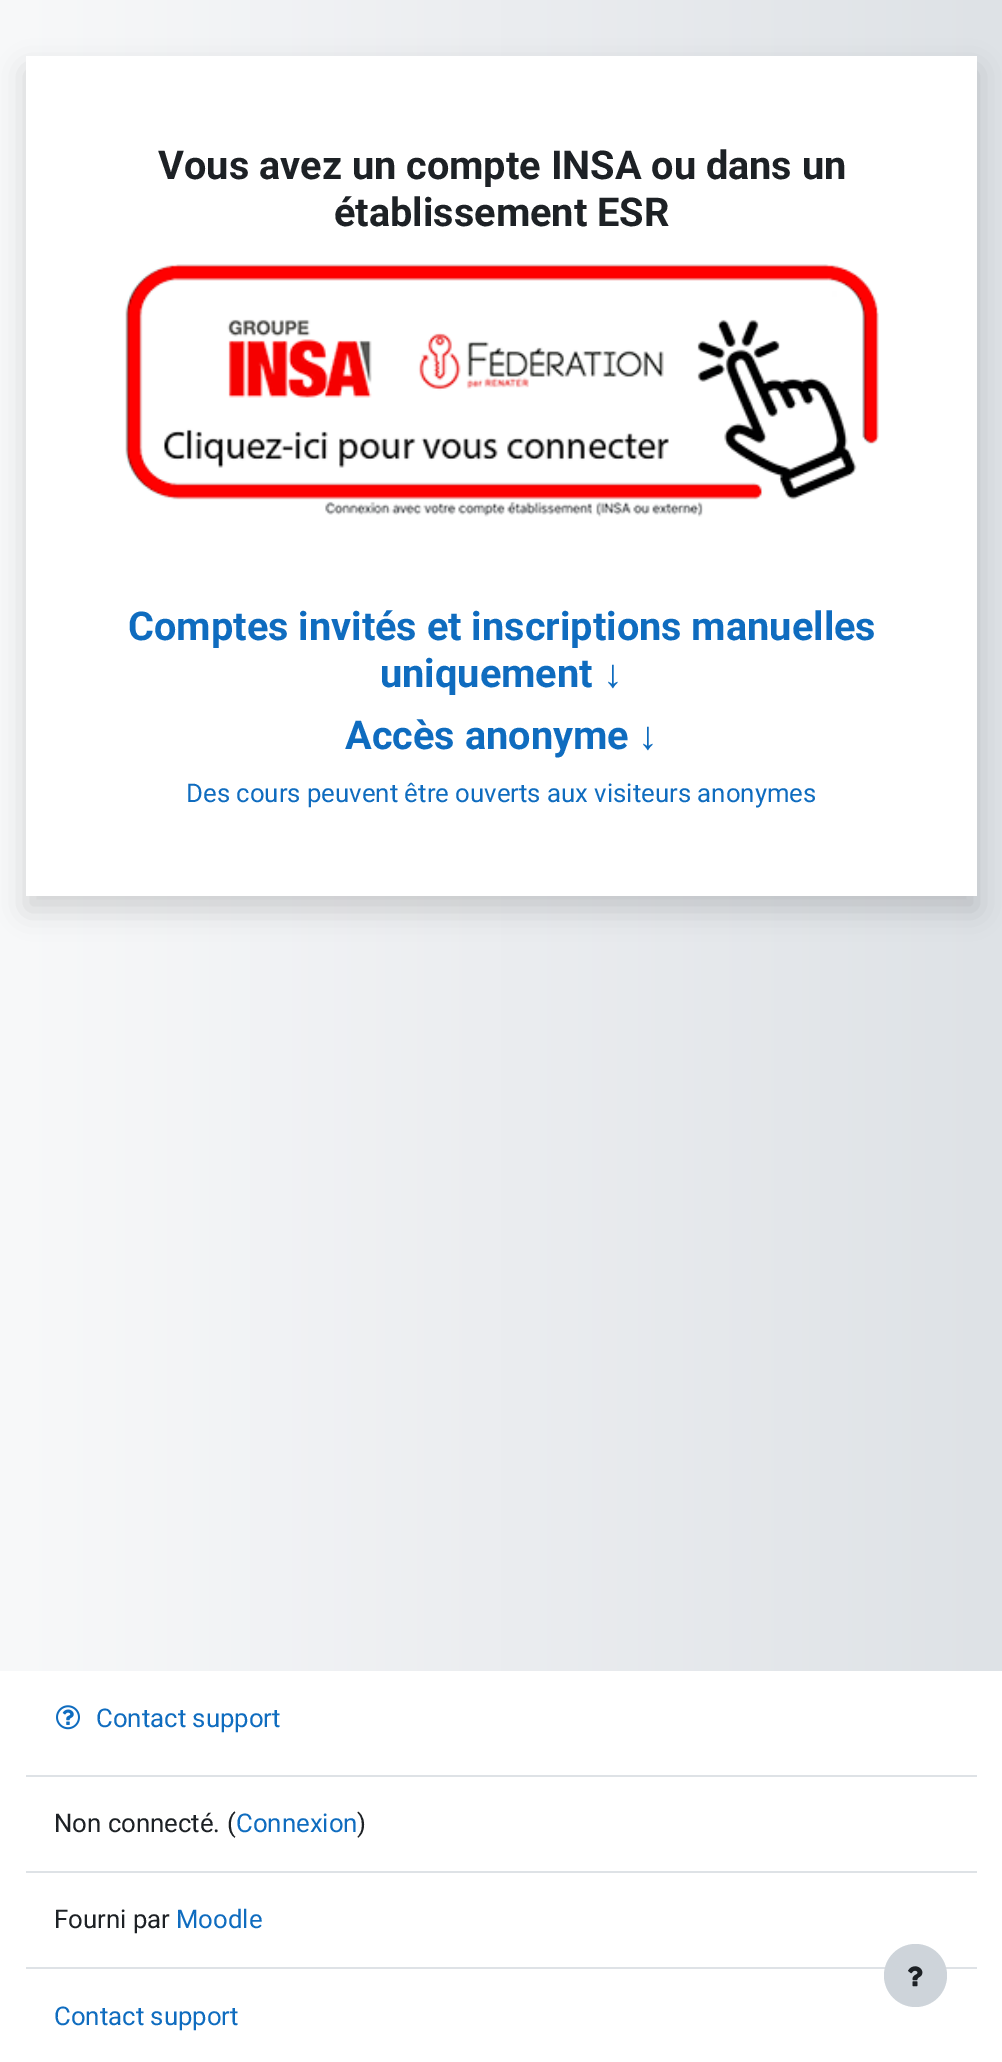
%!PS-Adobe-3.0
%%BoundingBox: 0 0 1002 2062
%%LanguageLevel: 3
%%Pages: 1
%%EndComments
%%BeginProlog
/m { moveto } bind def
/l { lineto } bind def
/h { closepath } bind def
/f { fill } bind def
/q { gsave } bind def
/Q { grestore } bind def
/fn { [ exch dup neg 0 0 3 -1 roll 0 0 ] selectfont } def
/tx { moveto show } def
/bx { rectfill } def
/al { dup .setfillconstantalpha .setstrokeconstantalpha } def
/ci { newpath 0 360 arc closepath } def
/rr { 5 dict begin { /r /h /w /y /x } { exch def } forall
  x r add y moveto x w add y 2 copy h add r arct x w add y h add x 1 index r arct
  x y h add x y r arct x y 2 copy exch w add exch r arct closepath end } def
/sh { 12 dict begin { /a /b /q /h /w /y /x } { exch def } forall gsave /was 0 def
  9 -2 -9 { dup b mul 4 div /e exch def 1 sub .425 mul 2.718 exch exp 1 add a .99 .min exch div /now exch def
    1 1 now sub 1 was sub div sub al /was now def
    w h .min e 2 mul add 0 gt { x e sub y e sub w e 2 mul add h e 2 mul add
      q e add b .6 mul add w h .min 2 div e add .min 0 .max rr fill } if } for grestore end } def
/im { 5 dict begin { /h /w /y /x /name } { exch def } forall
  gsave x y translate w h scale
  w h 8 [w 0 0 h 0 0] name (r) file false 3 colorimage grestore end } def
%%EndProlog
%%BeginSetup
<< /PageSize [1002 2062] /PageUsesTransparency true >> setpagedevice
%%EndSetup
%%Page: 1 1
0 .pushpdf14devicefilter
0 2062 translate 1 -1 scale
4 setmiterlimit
1 setgray
0 0 1002 2062 bx
q 0 0 m 1002 0 l 1002 1671 l 0 1671 l h clip newpath
<< /ShadingType 2 /ColorSpace /DeviceRGB /Coords [0 836 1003 836] /Extend [true true] /Function << /FunctionType 2 /Domain [0 1] /C0 [0.973 0.976 0.98] /C1 [0.871 0.886 0.902] /N 1 >> >> shfill Q
0 setgray
26 70 951 840 0 14 0.15 sh
1 setgray
26 56 951 840 bx
/Roboto-Bold 39.7 fn
0.114 0.129 0.145 setrgbcolor
(Vous avez un compte INSA ou dans un) 158 179 tx
(établissement ESR) 334 226 tx
(image0.raw) 125 264 754 253 im
0.059 0.424 0.749 setrgbcolor
(Comptes invités et inscriptions manuelles) 128 640 tx
(uniquement) 380 687 tx
/LiberationSans-Bold 39.7 fn
(↓) 603 687 tx
/Roboto-Bold 39.7 fn
(Accès anonyme) 345 749 tx
/LiberationSans-Bold 39.7 fn
(↓) 638 749 tx
/Roboto-Regular 25.75 fn
(Des cours peuvent être ouverts aux visiteurs anonymes) 186 802 tx
0.871 0.886 0.902 setrgbcolor
26 1775 951 2 bx
(image1.raw) 56 1705 24 25 im
0.059 0.424 0.749 setrgbcolor
(Contact support) 96 1727 tx
0.871 0.886 0.902 setrgbcolor
26 1871 951 2 bx
0.114 0.129 0.145 setrgbcolor
(Non connecté. \() 54 1832 tx
0.059 0.424 0.749 setrgbcolor
(Connexion) 236 1832 tx
0.114 0.129 0.145 setrgbcolor
(\)) 357 1832 tx
0.871 0.886 0.902 setrgbcolor
26 1967 951 2 bx
0.114 0.129 0.145 setrgbcolor
(Fourni par) 54 1928 tx
0.059 0.424 0.749 setrgbcolor
(Moodle) 176 1928 tx
0.808 0.831 0.855 setrgbcolor
915.5 1975.5 31.5 ci f
(image2.raw) 908 1966 15 21 im
0.059 0.424 0.749 setrgbcolor
(Contact support) 54 2025 tx
.poppdf14devicefilter showpage
%%EOF
